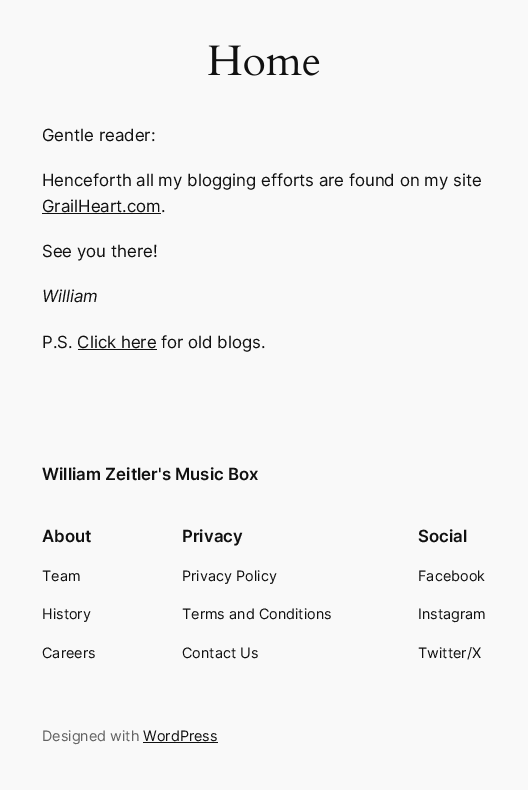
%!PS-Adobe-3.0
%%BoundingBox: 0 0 528 790
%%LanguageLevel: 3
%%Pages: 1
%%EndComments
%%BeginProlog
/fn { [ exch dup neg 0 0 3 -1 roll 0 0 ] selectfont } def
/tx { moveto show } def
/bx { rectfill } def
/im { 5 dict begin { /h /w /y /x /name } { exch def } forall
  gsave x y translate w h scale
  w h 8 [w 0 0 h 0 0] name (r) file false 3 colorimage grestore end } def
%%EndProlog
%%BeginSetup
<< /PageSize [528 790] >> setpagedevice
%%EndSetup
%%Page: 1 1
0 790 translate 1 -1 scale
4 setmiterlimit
0.976 setgray
0 0 528 790 bx
(image0.raw) 208 45 112 31 im
/Inter-Regular 16.8 fn
0.067 setgray
(Gentle reader:) 42 141 tx
(Henceforth all my blogging efforts are found on my site) 42 186 tx
(GrailHeart.com.) 42 212 tx
42 213 119 1 bx
(See you there!) 42 257 tx
/Inter-Italic 16.8 fn
(William) 42 302 tx
/Inter-Regular 16.8 fn
(P.S. Click here for old blogs.) 42 348 tx
78 349 79 1 bx
/Inter-SemiBold 16.8 fn
(William Zeitler's Music Box) 42 480 tx
(About) 42 542 tx
/Inter-Regular 14.4 fn
(Team) 42 581 tx
(History) 42 619 tx
(Careers) 42 658 tx
/Inter-SemiBold 16.8 fn
(Privacy) 182 542 tx
/Inter-Regular 14.4 fn
(Privacy Policy) 182 581 tx
(Terms and Conditions) 182 619 tx
(Contact Us) 182 658 tx
/Inter-SemiBold 16.8 fn
(Social) 418 542 tx
/Inter-Regular 14.4 fn
(Facebook) 418 581 tx
(Instagram) 418 619 tx
(Twitter/X) 418 658 tx
0.388 setgray
(Designed with) 42 741 tx
0.067 setgray
(WordPress) 143 741 tx
143 742 75 1 bx
showpage
%%EOF
